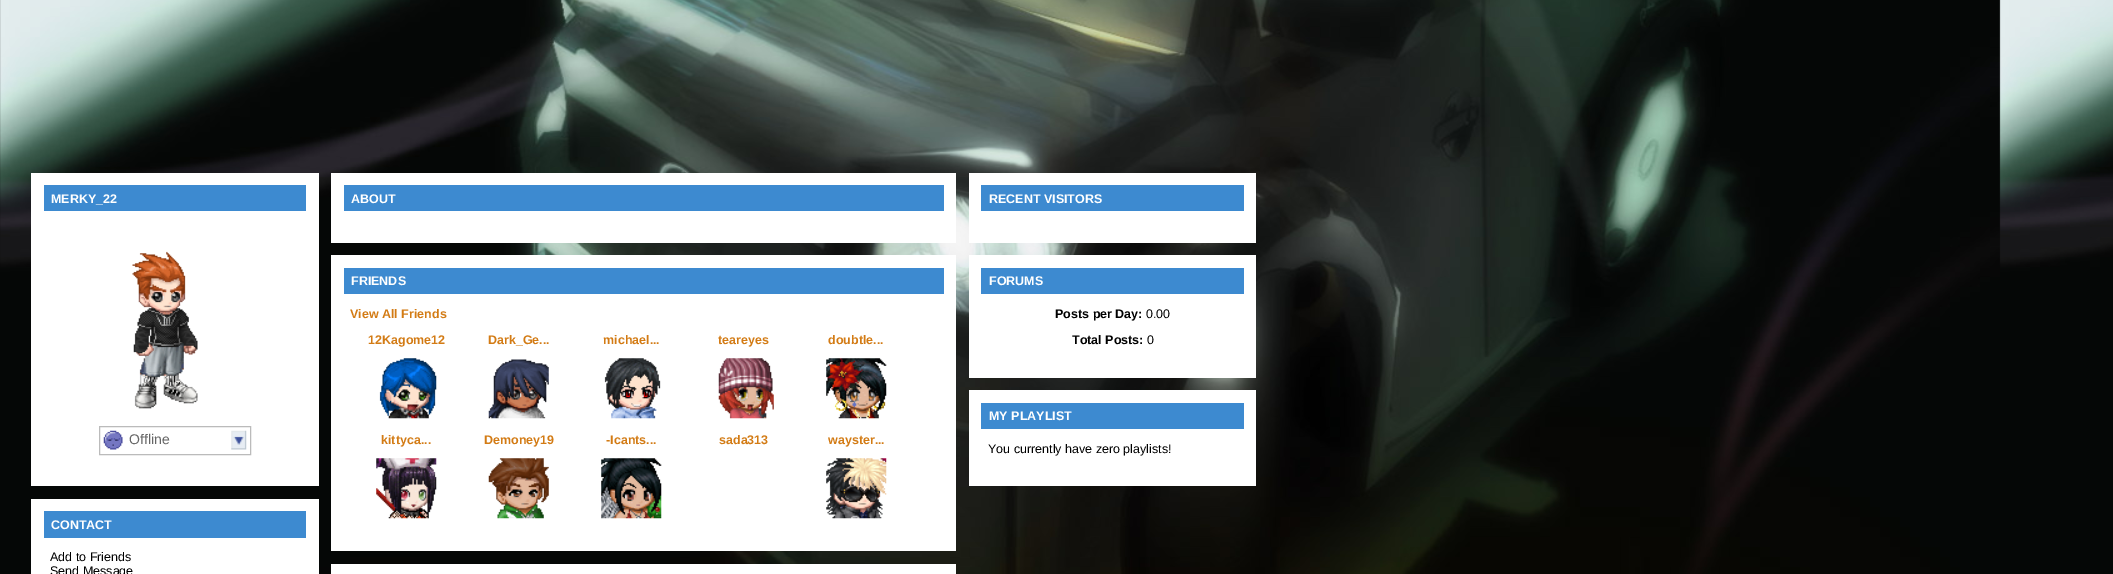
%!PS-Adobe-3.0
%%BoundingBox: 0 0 2113 574
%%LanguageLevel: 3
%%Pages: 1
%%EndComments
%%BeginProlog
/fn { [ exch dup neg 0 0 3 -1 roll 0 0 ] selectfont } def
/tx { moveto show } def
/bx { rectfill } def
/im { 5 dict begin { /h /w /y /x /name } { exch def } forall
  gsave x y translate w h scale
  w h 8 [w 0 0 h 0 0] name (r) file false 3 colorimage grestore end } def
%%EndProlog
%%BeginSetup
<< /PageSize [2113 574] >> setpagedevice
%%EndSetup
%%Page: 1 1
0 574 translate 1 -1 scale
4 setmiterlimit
1 setgray
0 0 2113 574 bx
(image0.raw) 0 0 2113 574 im
31 173 288 313 bx
0.239 0.541 0.816 setrgbcolor
44 185 262 26 bx
/LiberationSans-Bold 12.5 fn
1 setgray
(MERKY_22) 51 203 tx
(image1.raw) 132 251 66 158 im
0.733 setgray
99.5 426.5 151 28 rectstroke
(image2.raw) 231 430 16 20 im
(image3.raw) 103 430 20 20 im
/LiberationSans-Regular 14 fn
0.4 setgray
(Offline) 129 444 tx
1 setgray
31 499 288 75 bx
0.239 0.541 0.816 setrgbcolor
44 511 262 27 bx
/LiberationSans-Bold 12.5 fn
1 setgray
(CONTACT) 51 529 tx
/LiberationSans-Regular 12.5 fn
0 setgray
(Add to Friends) 50 561 tx
(Send Message) 50 575 tx
1 setgray
331 173 625 70 bx
0.239 0.541 0.816 setrgbcolor
344 185 600 26 bx
/LiberationSans-Bold 12.5 fn
1 setgray
(ABOUT) 351 203 tx
331 255 625 296 bx
0.239 0.541 0.816 setrgbcolor
344 268 600 26 bx
1 setgray
(FRIENDS) 351 285 tx
0.827 0.482 0.078 setrgbcolor
(View All Friends) 350 318 tx
(12Kagome12) 368 344 tx
(image4.raw) 379 358 58 61 im
(Dark_Ge...) 488 344 tx
(image5.raw) 488 359 61 60 im
(michael...) 603 344 tx
(image6.raw) 604 358 57 61 im
(teareyes) 718 344 tx
(image7.raw) 718 358 56 61 im
(doubtle...) 828 344 tx
(image8.raw) 826 358 61 61 im
(kittyca...) 381 444 tx
(image9.raw) 376 458 61 61 im
(Demoney19) 484 444 tx
(image10.raw) 488 458 61 61 im
(-Icants...) 606 444 tx
(image11.raw) 601 458 61 61 im
(sada313) 719 444 tx
(wayster...) 828 444 tx
(image12.raw) 826 458 61 61 im
1 setgray
331 564 625 10 bx
969 173 287 70 bx
0.239 0.541 0.816 setrgbcolor
981 185 263 26 bx
1 setgray
(RECENT VISITORS) 989 203 tx
969 255 287 123 bx
0.239 0.541 0.816 setrgbcolor
981 268 263 26 bx
1 setgray
(FORUMS) 989 285 tx
0 setgray
(Posts per Day:) 1055 318 tx
/LiberationSans-Regular 12.5 fn
(0.00) 1146 318 tx
/LiberationSans-Bold 12.5 fn
(Total Posts:) 1072 344 tx
/LiberationSans-Regular 12.5 fn
(0) 1147 344 tx
1 setgray
969 390 287 96 bx
0.239 0.541 0.816 setrgbcolor
981 403 263 26 bx
/LiberationSans-Bold 12.5 fn
1 setgray
(MY PLAYLIST) 989 420 tx
/LiberationSans-Regular 12.5 fn
0 setgray
(You currently have zero playlists!) 988 453 tx
showpage
%%EOF
